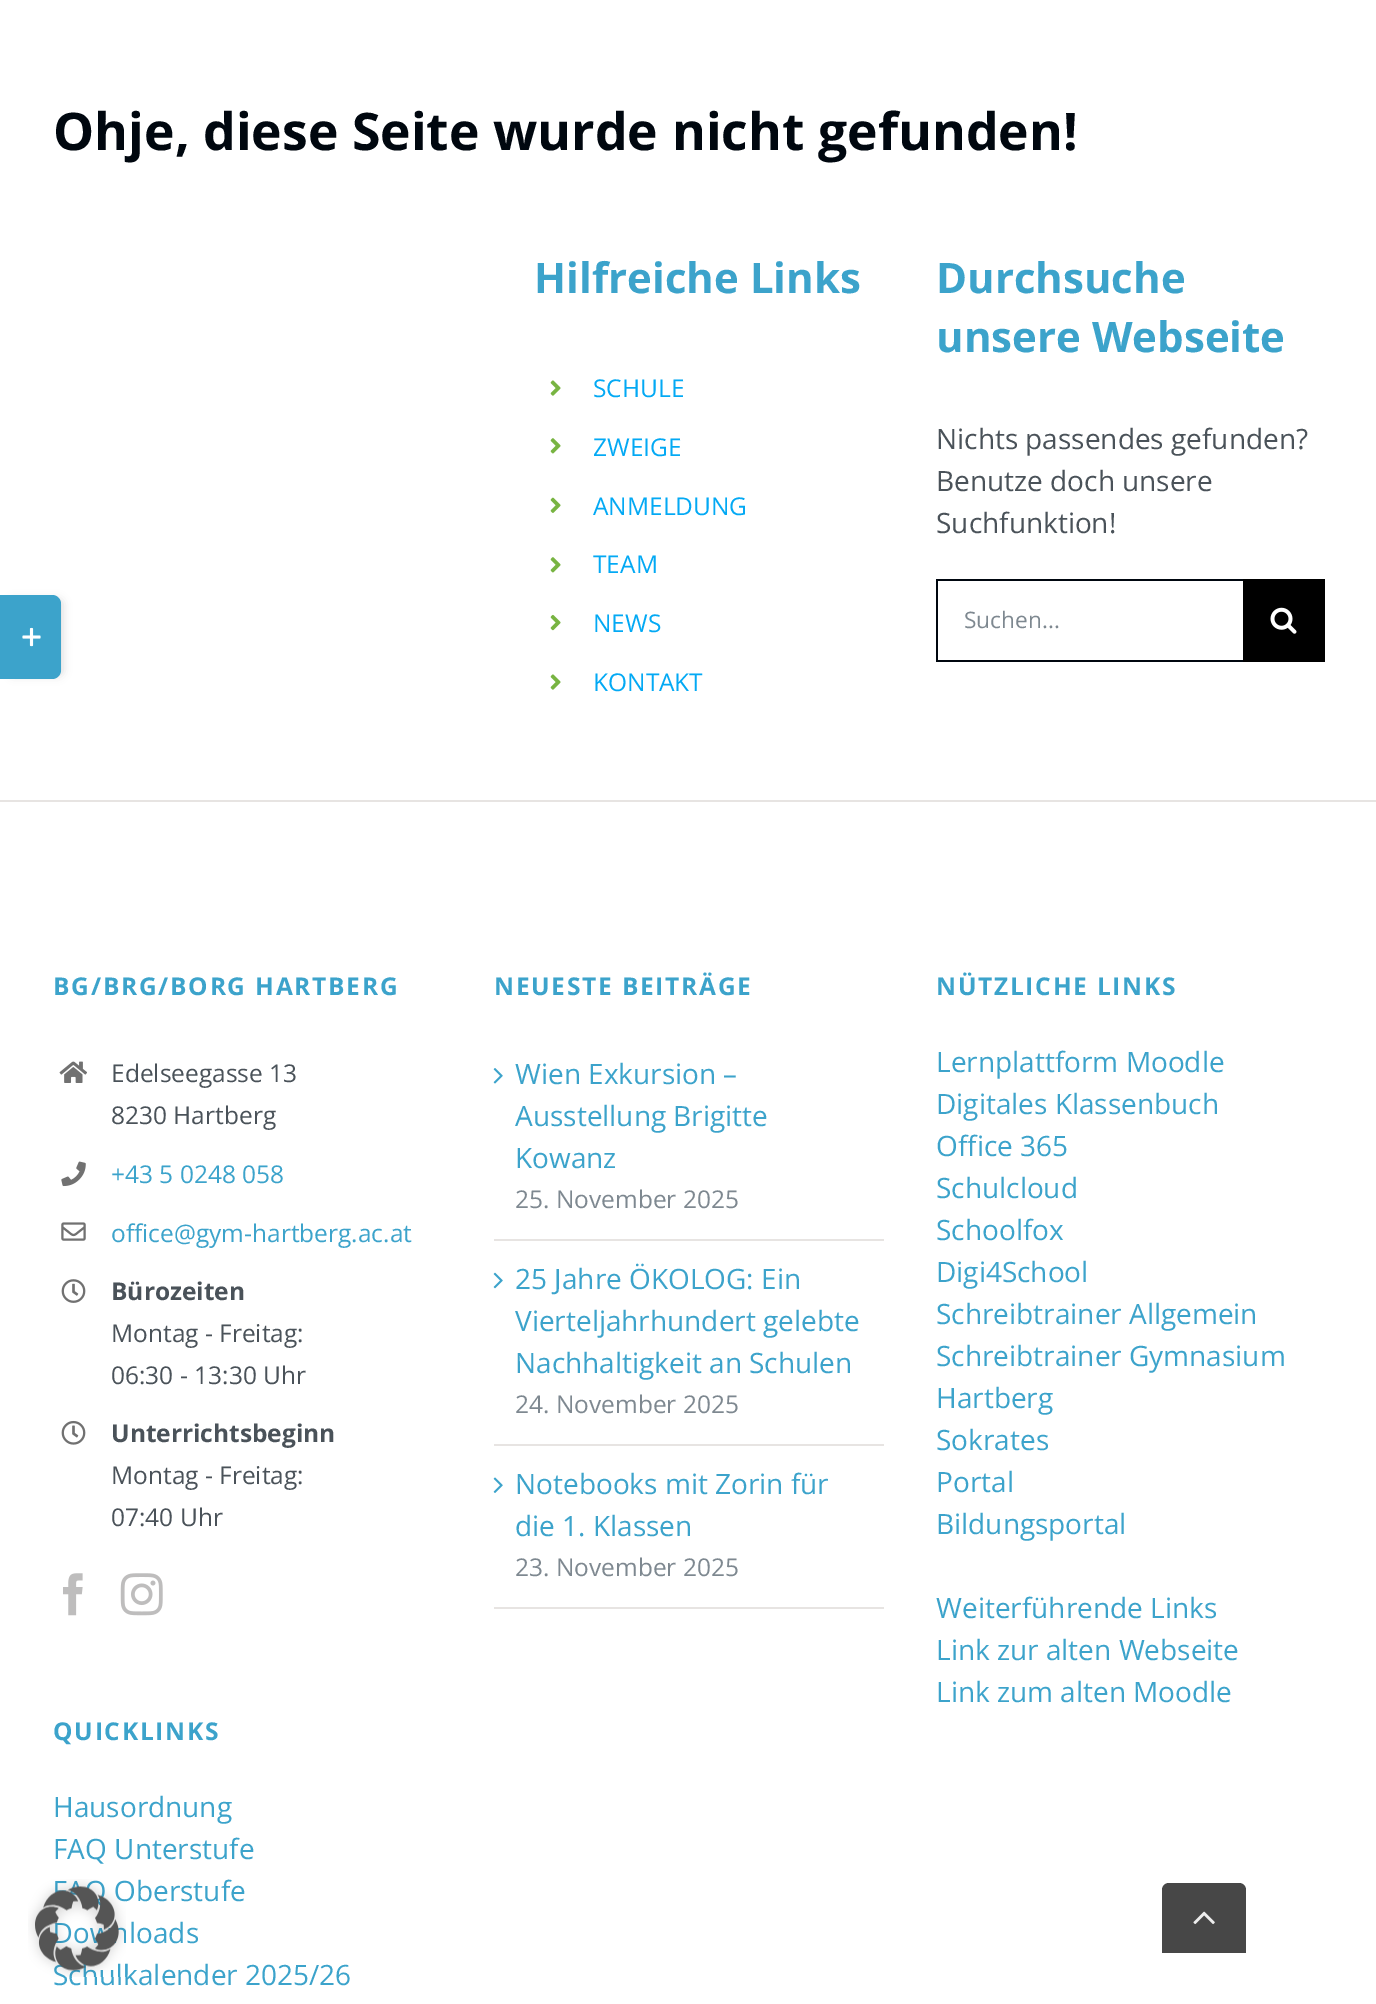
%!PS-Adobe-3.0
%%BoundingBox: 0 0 1376 2004
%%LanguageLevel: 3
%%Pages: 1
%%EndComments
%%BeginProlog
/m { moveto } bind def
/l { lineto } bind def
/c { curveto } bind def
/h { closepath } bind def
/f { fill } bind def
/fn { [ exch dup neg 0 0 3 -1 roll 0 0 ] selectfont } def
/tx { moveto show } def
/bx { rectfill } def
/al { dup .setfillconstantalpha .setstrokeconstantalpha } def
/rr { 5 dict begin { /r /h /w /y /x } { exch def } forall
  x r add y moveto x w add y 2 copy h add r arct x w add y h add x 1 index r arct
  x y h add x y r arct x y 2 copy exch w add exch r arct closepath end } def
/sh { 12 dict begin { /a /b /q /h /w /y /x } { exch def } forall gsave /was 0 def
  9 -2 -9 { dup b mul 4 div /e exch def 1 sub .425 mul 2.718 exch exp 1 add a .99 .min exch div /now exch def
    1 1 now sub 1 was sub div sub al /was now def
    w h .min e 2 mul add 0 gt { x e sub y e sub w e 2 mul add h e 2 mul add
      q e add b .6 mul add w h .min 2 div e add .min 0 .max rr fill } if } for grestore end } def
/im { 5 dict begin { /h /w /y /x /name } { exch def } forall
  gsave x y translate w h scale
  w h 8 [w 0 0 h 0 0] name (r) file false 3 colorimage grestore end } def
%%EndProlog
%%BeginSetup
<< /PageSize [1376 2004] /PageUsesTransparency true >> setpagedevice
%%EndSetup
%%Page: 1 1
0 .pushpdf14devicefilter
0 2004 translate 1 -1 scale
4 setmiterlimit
1 setgray
0 0 1376 2004 bx
0 setgray
9 599 54 77 5 4.5 0.14 sh
0.235 0.639 0.796 setrgbcolor
0 595 m 52 595 l 57 595 61 599 61 604 c 61 670 l 61 675 57 679 52 679 c 0 679 l h f
(image0.raw) 22 627 19 20 im
/OpenSans-Bold 51.75 fn
0 0.027 0.059 setrgbcolor
(Ohje, diese Seite wurde nicht gefunden!) 53 150 tx
/OpenSans-Bold 42 fn
0.235 0.639 0.796 setrgbcolor
(Hilfreiche Links) 534 293 tx
(image1.raw) 550 380 11 16 im
/OpenSans-Regular 24.5 fn
0.012 0.663 0.957 setrgbcolor
(SCHULE) 593 397 tx
(image2.raw) 550 438 11 16 im
(ZWEIGE) 593 456 tx
(image3.raw) 550 497 11 16 im
(ANMELDUNG) 593 515 tx
(image2.raw) 550 557 11 16 im
(TEAM) 593 573 tx
(image4.raw) 550 614 11 17 im
(NEWS) 593 632 tx
(image1.raw) 550 674 11 16 im
(KONTAKT) 593 691 tx
/OpenSans-Bold 42 fn
0.235 0.639 0.796 setrgbcolor
(Durchsuche) 936 293 tx
(unsere Webseite) 936 352 tx
/OpenSans-Regular 28 fn
0.29 0.322 0.349 setrgbcolor
(Nichts passendes gefunden?) 936 449 tx
(Benutze doch unsere) 936 491 tx
(Suchfunktion!) 936 533 tx
0 0.027 0.059 setrgbcolor
936 579 307 2 bx
936 660 307 2 bx
936 579 2 83 bx
/OpenSans-Regular 22.75 fn
0.494 0.533 0.565 setrgbcolor
(Suchen...) 964 628 tx
0 setgray
1243 579 82 83 bx
(image5.raw) 1270 607 27 27 im
0.906 0.894 0.886 setrgbcolor
0 800 1376 2 bx
/OpenSans-Bold 24.5 fn
0.235 0.639 0.796 setrgbcolor
53 995 m 1.75 0 (BG/BRG/BORG HARTBERG) ashow
(image6.raw) 59 1061 28 22 im
/OpenSans-Regular 24.5 fn
0.29 0.322 0.349 setrgbcolor
(Edelseegasse 13) 111 1082 tx
(8230 Hartberg) 111 1124 tx
(image7.raw) 61 1161 25 26 im
0.235 0.639 0.796 setrgbcolor
(+43 5 0248 058) 111 1183 tx
(image8.raw) 61 1222 25 19 im
(office@gym-hartberg.ac.at) 111 1242 tx
(image9.raw) 61 1279 25 24 im
/OpenSans-Bold 24.5 fn
0.29 0.322 0.349 setrgbcolor
(Bürozeiten) 111 1300 tx
/OpenSans-Regular 24.5 fn
(Montag - Freitag:) 111 1342 tx
(06:30 - 13:30 Uhr) 111 1384 tx
(image10.raw) 61 1420 25 25 im
/OpenSans-Bold 24.5 fn
(Unterrichtsbeginn) 111 1442 tx
/OpenSans-Regular 24.5 fn
(Montag - Freitag:) 111 1484 tx
(07:40 Uhr) 111 1526 tx
(image11.raw) 63 1573 20 43 im
(image12.raw) 120 1573 43 43 im
/OpenSans-Bold 24.5 fn
0.235 0.639 0.796 setrgbcolor
494 995 m 1.75 0 (NEUESTE BEITRÄGE) ashow
0.906 0.894 0.886 setrgbcolor
494 1239 390 2 bx
(image13.raw) 493 1068 10 16 im
/OpenSans-Regular 28 fn
0.235 0.639 0.796 setrgbcolor
(Wien Exkursion –) 515 1084 tx
(Ausstellung Brigitte) 515 1126 tx
(Kowanz) 515 1168 tx
/OpenSans-Regular 24.5 fn
0.494 0.533 0.565 setrgbcolor
(25. November 2025) 515 1208 tx
0.906 0.894 0.886 setrgbcolor
494 1444 390 2 bx
(image14.raw) 493 1272 10 17 im
/OpenSans-Regular 28 fn
0.235 0.639 0.796 setrgbcolor
(25 Jahre ÖKOLOG: Ein) 515 1289 tx
(Vierteljahrhundert gelebte) 515 1331 tx
(Nachhaltigkeit an Schulen) 515 1373 tx
/OpenSans-Regular 24.5 fn
0.494 0.533 0.565 setrgbcolor
(24. November 2025) 515 1413 tx
0.906 0.894 0.886 setrgbcolor
494 1607 390 2 bx
(image15.raw) 493 1477 10 16 im
/OpenSans-Regular 28 fn
0.235 0.639 0.796 setrgbcolor
(Notebooks mit Zorin für) 515 1494 tx
(die 1. Klassen) 515 1536 tx
/OpenSans-Regular 24.5 fn
0.494 0.533 0.565 setrgbcolor
(23. November 2025) 515 1576 tx
/OpenSans-Bold 24.5 fn
0.235 0.639 0.796 setrgbcolor
936 995 m 1.75 0 (NÜTZLICHE LINKS) ashow
/OpenSans-Regular 28 fn
(Lernplattform Moodle) 936 1072 tx
(Digitales Klassenbuch) 936 1114 tx
(Office 365) 936 1156 tx
(Schulcloud) 936 1198 tx
(Schoolfox) 936 1240 tx
(Digi4School) 936 1282 tx
(Schreibtrainer Allgemein) 936 1324 tx
(Schreibtrainer Gymnasium) 936 1366 tx
(Hartberg) 936 1408 tx
(Sokrates) 936 1450 tx
(Portal) 936 1492 tx
(Bildungsportal) 936 1534 tx
(Weiterführende Links) 936 1618 tx
(Link zur alten Webseite) 936 1660 tx
(Link zum alten Moodle) 936 1702 tx
/OpenSans-Bold 24.5 fn
53 1740 m 1.75 0 (QUICKLINKS) ashow
/OpenSans-Regular 28 fn
(Hausordnung) 53 1817 tx
(FAQ Unterstufe) 53 1859 tx
(Oberstufe) 114 1901 tx
(o) 73 1943 tx
(loads) 129 1943 tx
(Schulkalender 2025/26) 53 1985 tx
(image16.raw) 28 1879 98 98 im
0.278 setgray
1169 1883 m 1239 1883 l 1243 1883 1246 1886 1246 1890 c 1246 1953 l 1162 1953 l 1162 1890 l 1162 1886 1165 1883 1169 1883 c h f
(image17.raw) 1193 1911 22 14 im
.poppdf14devicefilter showpage
%%EOF
